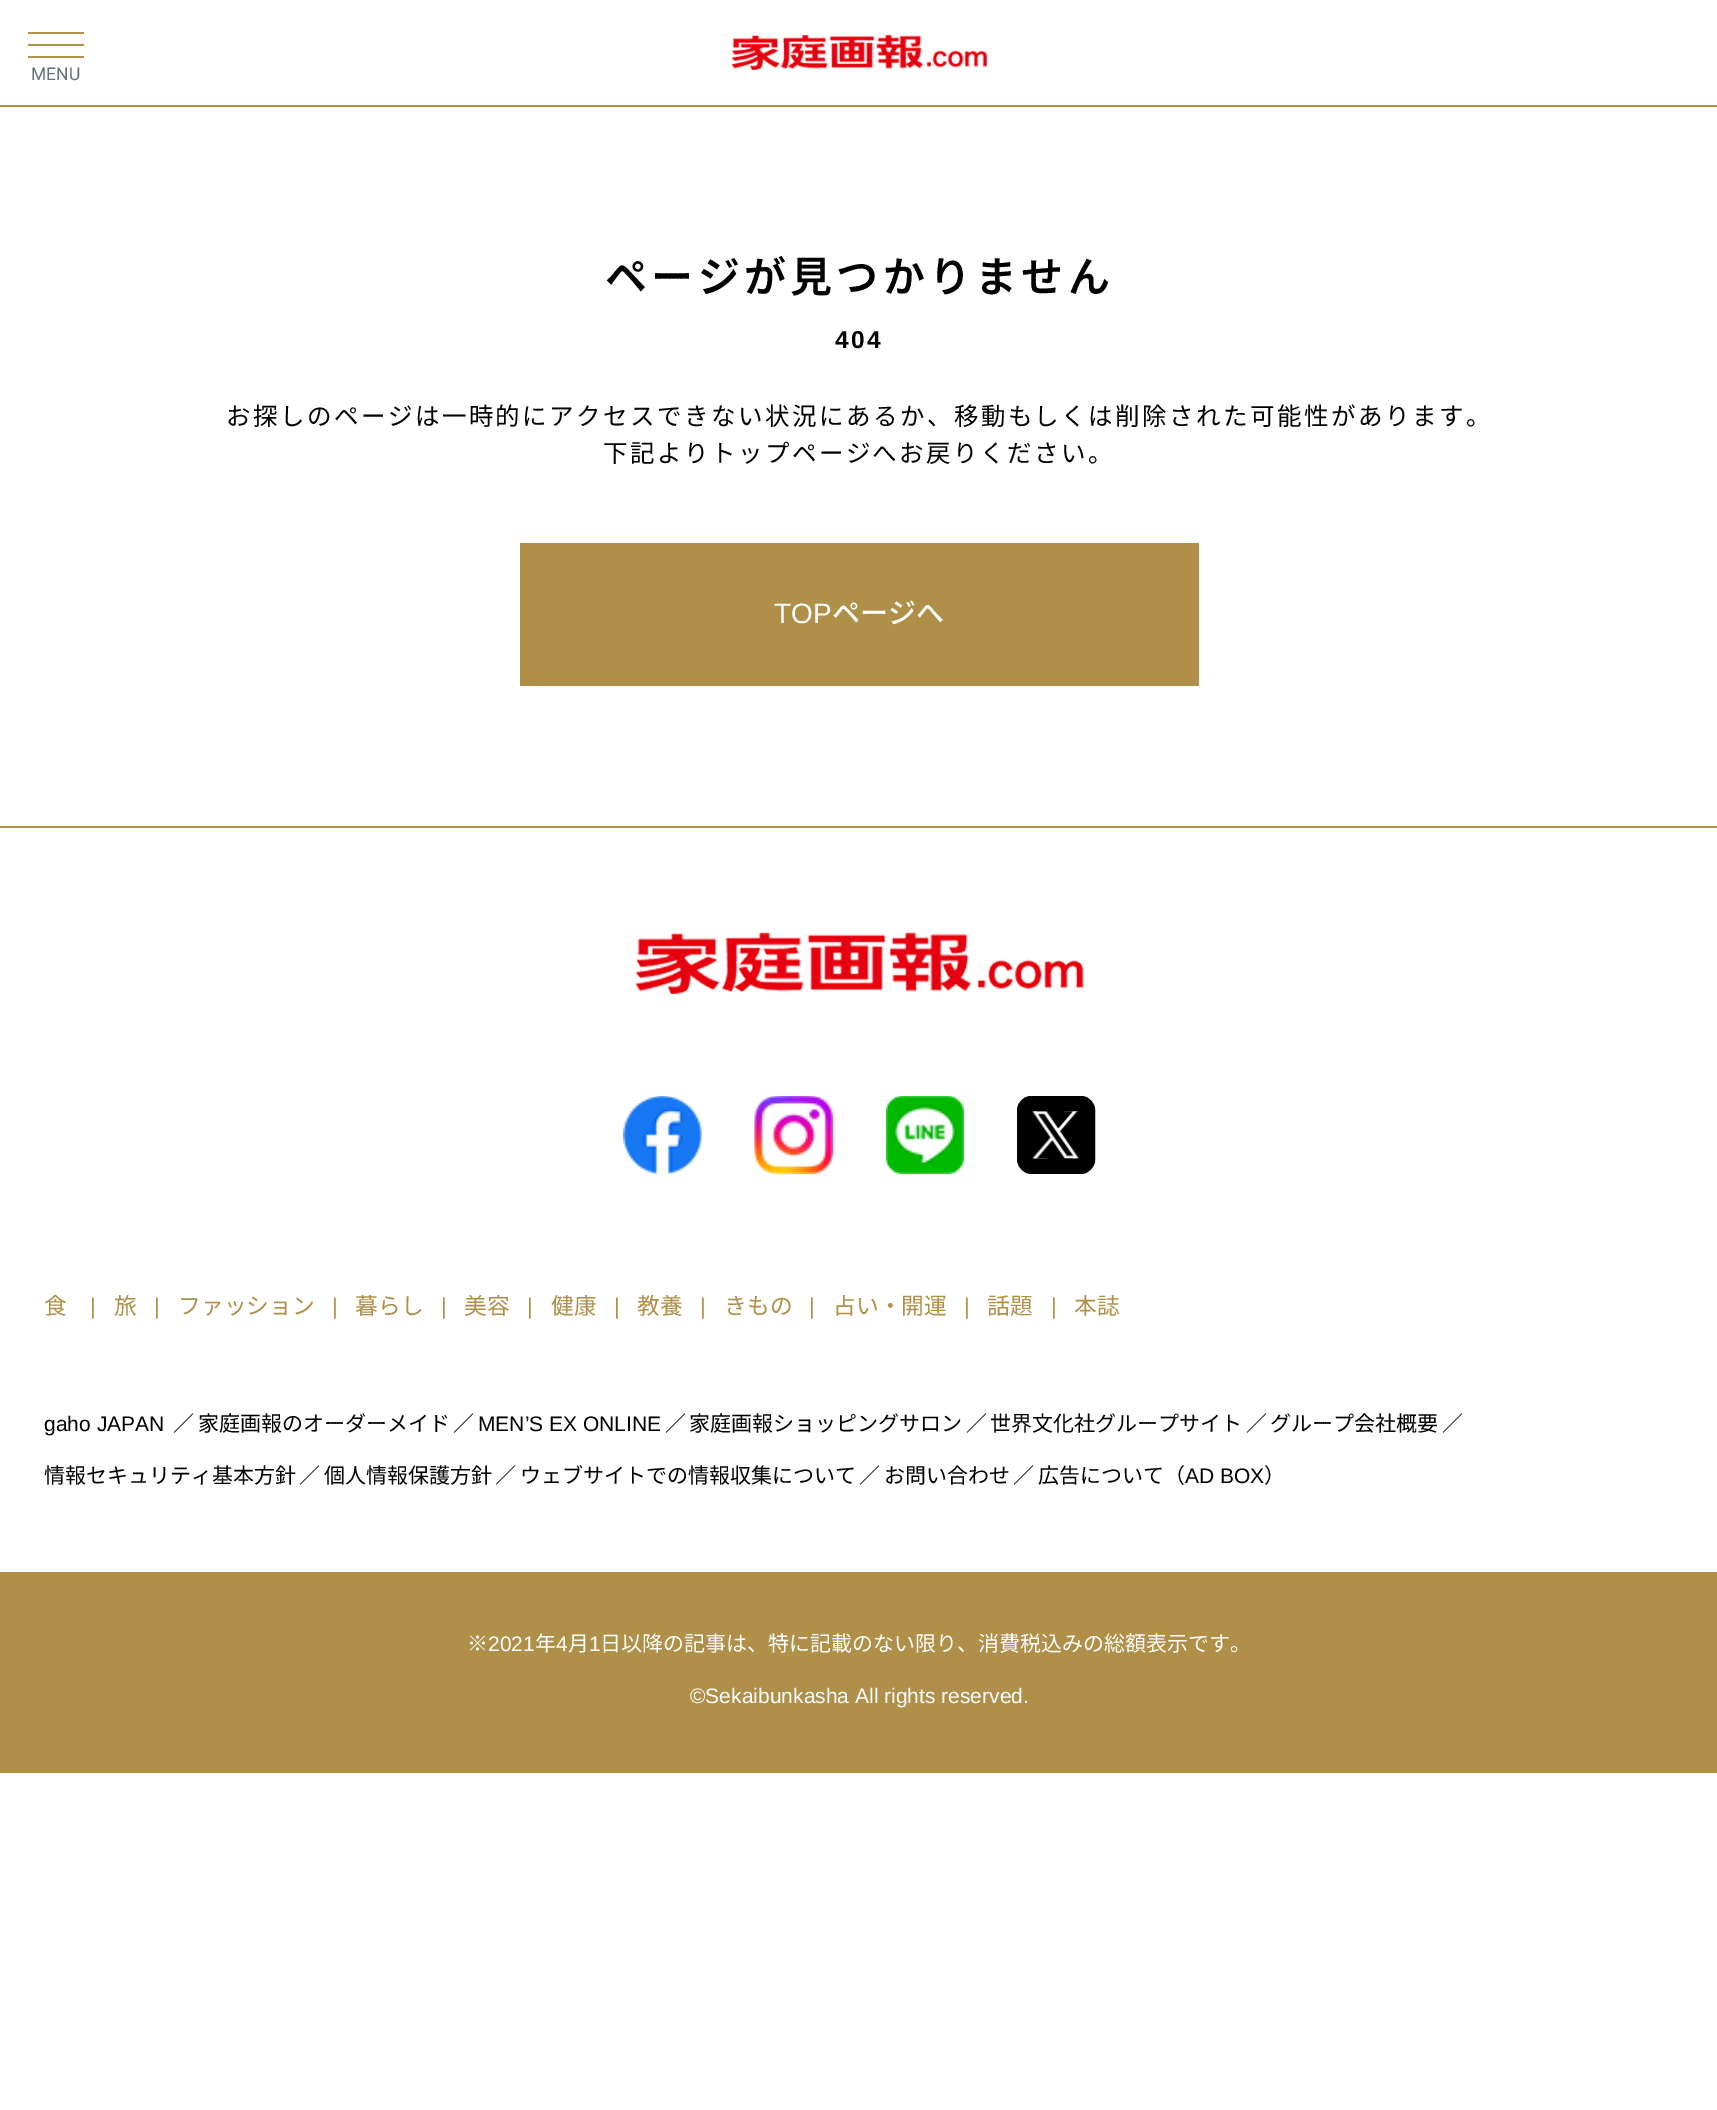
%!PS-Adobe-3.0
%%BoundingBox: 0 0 1717 2110
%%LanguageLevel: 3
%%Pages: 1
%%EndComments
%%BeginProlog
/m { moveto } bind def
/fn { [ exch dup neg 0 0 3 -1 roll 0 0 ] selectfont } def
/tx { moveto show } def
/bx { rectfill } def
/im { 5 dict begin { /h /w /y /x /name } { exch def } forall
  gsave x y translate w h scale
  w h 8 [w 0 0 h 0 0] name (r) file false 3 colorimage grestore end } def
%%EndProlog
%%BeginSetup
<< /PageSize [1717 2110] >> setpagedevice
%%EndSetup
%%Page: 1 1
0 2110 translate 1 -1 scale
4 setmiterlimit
1 setgray
0 0 1717 2110 bx
0.69 0.561 0.282 setrgbcolor
0 105 1717 2 bx
(image0.raw) 731 35 256 35 im
28 32 56 2 bx
28 44 56 2 bx
28 56 56 2 bx
/Roboto-Regular 17.5 fn
0.388 0.447 0.463 setrgbcolor
(MENU) 31 80 tx
/NotoSansJP-SemiBold 42 fn
0 setgray
605 292 m 4.25 0 (ページが見つかりません) ashow
/LiberationSans-Bold 24.5 fn
835 348 m 2.45 0 (404) ashow
/NotoSansJP-Regular 24.5 fn
226 425 m 2.45 0 (お探しのページは一時的にアクセスできない状況にあるか、移動もしくは削除された可能性があります。) ashow
603 462 m 2.45 0 (下記よりトップページへお戻りください。) ashow
0.69 0.561 0.282 setrgbcolor
520 543 679 143 bx
/LiberationSans-Regular 28 fn
1 setgray
(TOP) 774 623 tx
/NotoSansJP-Medium 28 fn
(ページへ) 832 623 tx
0.69 0.561 0.282 setrgbcolor
0 826 1717 2 bx
(image1.raw) 635 932 449 62 im
(image2.raw) 623 1096 79 78 im
(image3.raw) 754 1096 79 78 im
(image4.raw) 886 1096 78 78 im
(image5.raw) 1017 1096 79 78 im
/NotoSansJP-Regular 22.75 fn
(食) 44 1314 tx
/LiberationSans-Regular 22.75 fn
(|) 90 1314 tx
/NotoSansJP-Regular 22.75 fn
(旅) 114 1314 tx
/LiberationSans-Regular 22.75 fn
(|) 154 1314 tx
/NotoSansJP-Regular 22.75 fn
(ファッション) 178 1314 tx
/LiberationSans-Regular 22.75 fn
(|) 332 1314 tx
/NotoSansJP-Regular 22.75 fn
(暮らし) 355 1314 tx
/LiberationSans-Regular 22.75 fn
(|) 441 1314 tx
/NotoSansJP-Regular 22.75 fn
(美容) 464 1314 tx
/LiberationSans-Regular 22.75 fn
(|) 527 1314 tx
/NotoSansJP-Regular 22.75 fn
(健康) 551 1314 tx
/LiberationSans-Regular 22.75 fn
(|) 614 1314 tx
/NotoSansJP-Regular 22.75 fn
(教養) 637 1314 tx
/LiberationSans-Regular 22.75 fn
(|) 700 1314 tx
/NotoSansJP-Regular 22.75 fn
(きもの) 724 1314 tx
/LiberationSans-Regular 22.75 fn
(|) 809 1314 tx
/NotoSansJP-Regular 22.75 fn
(占い・開運) 833 1314 tx
/LiberationSans-Regular 22.75 fn
(|) 964 1314 tx
/NotoSansJP-Regular 22.75 fn
(話題) 987 1314 tx
/LiberationSans-Regular 22.75 fn
(|) 1051 1314 tx
/NotoSansJP-Regular 22.75 fn
(本誌) 1074 1314 tx
/LiberationSans-Regular 21 fn
0 setgray
(gaho JAPAN) 44 1431 tx
/NotoSansJP-Regular 21 fn
(／) 173 1431 tx
(家庭画報のオーダーメイド) 198 1431 tx
(／) 453 1431 tx
/LiberationSans-Regular 21 fn
(MEN’S EX ONLINE) 478 1431 tx
/NotoSansJP-Regular 21 fn
(／) 665 1431 tx
(家庭画報ショッピングサロン) 689 1431 tx
(／) 966 1431 tx
(世界文化社グループサイト) 990 1431 tx
(／) 1246 1431 tx
(グループ会社概要) 1270 1431 tx
(／) 1442 1431 tx
(情報セキュリティ基本方針) 44 1483 tx
(／) 299 1483 tx
(個人情報保護方針) 324 1483 tx
(／) 495 1483 tx
(ウェブサイトでの情報収集について) 520 1483 tx
(／) 859 1483 tx
(お問い合わせ) 884 1483 tx
(／) 1013 1483 tx
(広告について（) 1038 1483 tx
/LiberationSans-Regular 21 fn
(AD BOX) 1185 1483 tx
/NotoSansJP-Regular 21 fn
(）) 1264 1483 tx
0.69 0.561 0.282 setrgbcolor
0 1572 1717 201 bx
1 setgray
(※) 467 1651 tx
/LiberationSans-Regular 21 fn
(2021) 488 1651 tx
/NotoSansJP-Regular 21 fn
(年) 535 1651 tx
/LiberationSans-Regular 21 fn
(4) 556 1651 tx
/NotoSansJP-Regular 21 fn
(月) 568 1651 tx
/LiberationSans-Regular 21 fn
(1) 589 1651 tx
/NotoSansJP-Regular 21 fn
(日以降の記事は、特に記載のない限り、消費税込みの総額表示です。) 600 1651 tx
/LiberationSans-Regular 21 fn
(©Sekaibunkasha All rights reserved.) 690 1703 tx
showpage
%%EOF
